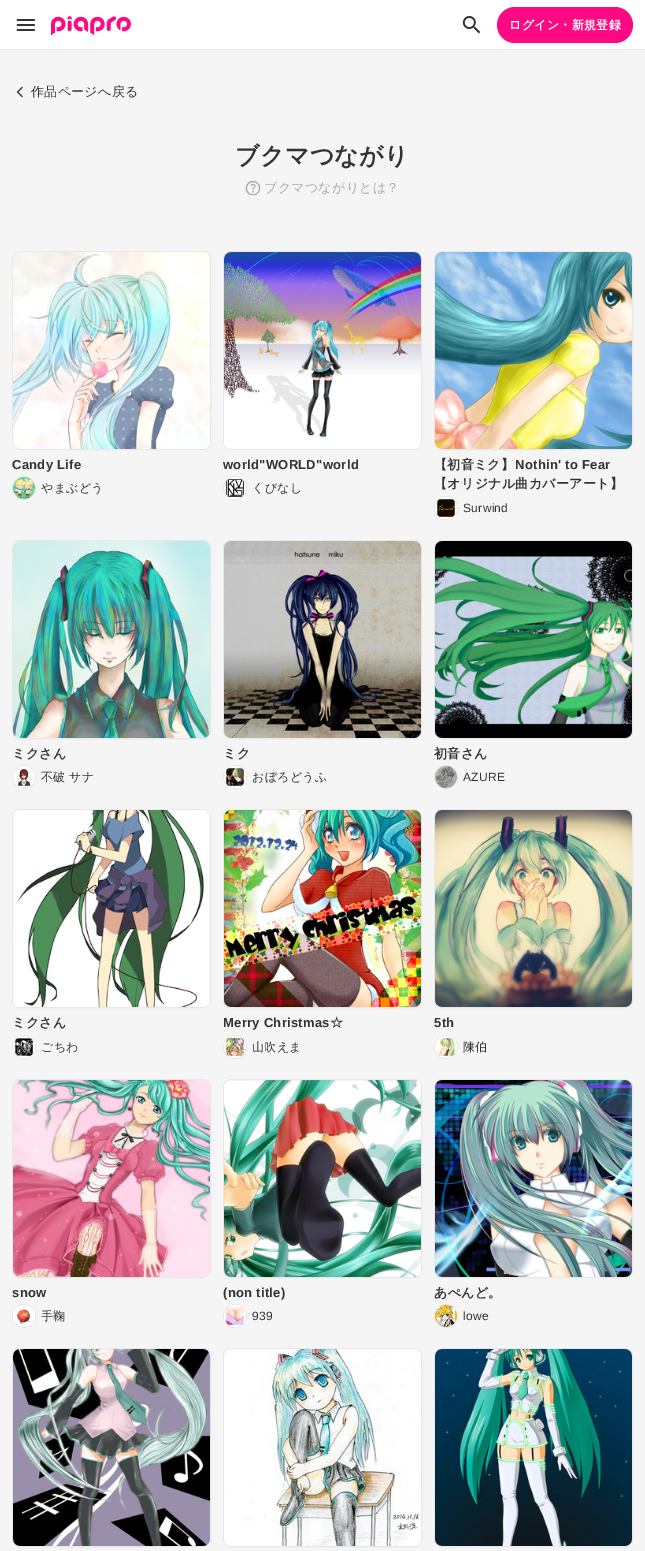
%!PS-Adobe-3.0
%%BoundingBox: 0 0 645 1551
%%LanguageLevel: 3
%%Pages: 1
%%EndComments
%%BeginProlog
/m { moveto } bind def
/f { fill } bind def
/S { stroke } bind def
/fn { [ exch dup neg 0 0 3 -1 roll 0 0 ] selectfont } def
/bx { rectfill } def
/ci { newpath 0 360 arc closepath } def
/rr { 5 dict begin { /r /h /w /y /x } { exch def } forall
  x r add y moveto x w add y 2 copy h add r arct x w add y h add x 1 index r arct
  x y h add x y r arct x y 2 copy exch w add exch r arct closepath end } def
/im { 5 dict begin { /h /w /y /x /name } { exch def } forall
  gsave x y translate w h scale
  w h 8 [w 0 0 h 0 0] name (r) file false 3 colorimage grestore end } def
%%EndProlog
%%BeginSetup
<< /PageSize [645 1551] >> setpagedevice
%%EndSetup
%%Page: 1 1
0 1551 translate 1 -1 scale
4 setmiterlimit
0.961 setgray
0 0 645 1551 bx
1 setgray
0 0 645 49 bx
0.91 setgray
0 49 645 1 bx
(image0.raw) 16 19 19 12 im
(image1.raw) 51 16 80 19 im
(image2.raw) 462 16 19 18 im
1 0.035 0.51 setrgbcolor
497 7 136 36 18 rr f
/WenQuanYiZenHei-Bold 12 fn
1 setgray
509 29 m 0.3 0 (ログイン・新規登録) ashow
(image3.raw) 16 86 7 12 im
/WenQuanYiZenHei-Medium 13 fn
0.2 setgray
31 96 m 0.3 0 (作品ページへ戻る) ashow
/WenQuanYiZenHei-Bold 24 fn
235 164 m 0.3 0 (ブクマつながり) ashow
(image4.raw) 245 180 16 15 im
/WenQuanYiZenHei-Medium 13 fn
0.667 setgray
264 192 m 0.3 0 (ブクマつながりとは？) ashow
0.91 setgray
12.5 251.5 198 198 7.5 rr S
(image5.raw) 13 252 197 197 im
/LiberationSans-Bold 13 fn
0.2 setgray
12 469 m 0.3 0 (Candy Life) ashow
0.91 setgray
24 488 11.5 ci S
(image6.raw) 13 477 22 22 im
/WenQuanYiZenHei-Medium 12 fn
0.2 setgray
41 492 m 0.3 0 (やまぶどう) ashow
0.91 setgray
223.5 251.5 198 198 7.5 rr S
(image7.raw) 224 252 197 197 im
/LiberationSans-Bold 13 fn
0.2 setgray
223 469 m 0.3 0 (world"WORLD"world) ashow
0.91 setgray
235 488 11.5 ci S
(image8.raw) 224 477 22 22 im
/WenQuanYiZenHei-Medium 12 fn
0.2 setgray
252 492 m 0.3 0 (くびなし) ashow
0.91 setgray
434.5 251.5 198 198 7.5 rr S
(image9.raw) 435 252 197 197 im
/WenQuanYiZenHei-Bold 13 fn
0.2 setgray
434 469 m 0.3 0 (【初音ミク】) ashow
/LiberationSans-Bold 13 fn
515 469 m 0.3 0 (Nothin' to Fear) ashow
/WenQuanYiZenHei-Bold 13 fn
434 488 m 0.3 0 (【オリジナル曲カバーアート】) ashow
0.91 setgray
446 508 11.5 ci S
(image10.raw) 435 497 22 22 im
/LiberationSans-Regular 12 fn
0.2 setgray
463 512 m 0.3 0 (Surwind) ashow
0.91 setgray
12.5 540.5 198 198 7.5 rr S
(image11.raw) 13 541 197 197 im
/WenQuanYiZenHei-Bold 13 fn
0.2 setgray
12 758 m 0.3 0 (ミクさん) ashow
0.91 setgray
24 777 11.5 ci S
(image12.raw) 13 766 22 22 im
/WenQuanYiZenHei-Medium 12 fn
0.2 setgray
41 781 m 0.3 0 (不破 サナ) ashow
0.91 setgray
223.5 540.5 198 198 7.5 rr S
(image13.raw) 224 541 197 197 im
/WenQuanYiZenHei-Bold 13 fn
0.2 setgray
223 758 m 0.3 0 (ミク) ashow
0.91 setgray
235 777 11.5 ci S
(image14.raw) 224 766 22 22 im
/WenQuanYiZenHei-Medium 12 fn
0.2 setgray
252 781 m 0.3 0 (おぼろどうふ) ashow
0.91 setgray
434.5 540.5 198 198 7.5 rr S
(image15.raw) 435 541 197 197 im
/WenQuanYiZenHei-Bold 13 fn
0.2 setgray
434 758 m 0.3 0 (初音さん) ashow
0.91 setgray
446 777 11.5 ci S
(image16.raw) 435 766 22 22 im
/LiberationSans-Regular 12 fn
0.2 setgray
463 781 m 0.3 0 (AZURE) ashow
0.91 setgray
12.5 809.5 198 198 7.5 rr S
(image17.raw) 13 810 197 197 im
/WenQuanYiZenHei-Bold 13 fn
0.2 setgray
12 1027 m 0.3 0 (ミクさん) ashow
0.91 setgray
24 1047 11.5 ci S
(image18.raw) 13 1036 22 22 im
/WenQuanYiZenHei-Medium 12 fn
0.2 setgray
41 1051 m 0.3 0 (ごちわ) ashow
0.91 setgray
223.5 809.5 198 198 7.5 rr S
(image19.raw) 224 810 197 197 im
/LiberationSans-Bold 13 fn
0.2 setgray
223 1027 m 0.3 0 (Merry Christmas) ashow
/WenQuanYiZenHei-Bold 13 fn
330 1027 m 0.3 0 (☆) ashow
0.91 setgray
235 1047 11.5 ci S
(image20.raw) 224 1036 22 22 im
/WenQuanYiZenHei-Medium 12 fn
0.2 setgray
252 1051 m 0.3 0 (山吹えま) ashow
0.91 setgray
434.5 809.5 198 198 7.5 rr S
(image21.raw) 435 810 197 197 im
/LiberationSans-Bold 13 fn
0.2 setgray
434 1027 m 0.3 0 (5th) ashow
0.91 setgray
446 1047 11.5 ci S
(image22.raw) 435 1036 22 22 im
/WenQuanYiZenHei-Medium 12 fn
0.2 setgray
463 1051 m 0.3 0 (陳伯) ashow
0.91 setgray
12.5 1079.5 198 198 7.5 rr S
(image23.raw) 13 1080 197 197 im
/LiberationSans-Bold 13 fn
0.2 setgray
12 1297 m 0.3 0 (snow) ashow
0.91 setgray
24 1316 11.5 ci S
(image24.raw) 13 1305 22 22 im
/WenQuanYiZenHei-Medium 12 fn
0.2 setgray
41 1320 m 0.3 0 (手鞠) ashow
0.91 setgray
223.5 1079.5 198 198 7.5 rr S
(image25.raw) 224 1080 197 197 im
/LiberationSans-Bold 13 fn
0.2 setgray
223 1297 m 0.3 0 (\(non title\)) ashow
0.91 setgray
235 1316 11.5 ci S
(image26.raw) 224 1305 22 22 im
/LiberationSans-Regular 12 fn
0.2 setgray
252 1320 m 0.3 0 (939) ashow
0.91 setgray
434.5 1079.5 198 198 7.5 rr S
(image27.raw) 435 1080 197 197 im
/WenQuanYiZenHei-Bold 13 fn
0.2 setgray
434 1297 m 0.3 0 (あぺんど。) ashow
0.91 setgray
446 1316 11.5 ci S
(image28.raw) 435 1305 22 22 im
/LiberationSans-Regular 12 fn
0.2 setgray
463 1320 m 0.3 0 (lowe) ashow
0.91 setgray
12.5 1348.5 198 198 7.5 rr S
(image29.raw) 13 1349 197 197 im
223.5 1348.5 198 198 7.5 rr S
(image30.raw) 224 1349 197 197 im
434.5 1348.5 198 198 7.5 rr S
(image31.raw) 435 1349 197 197 im
showpage
%%EOF
